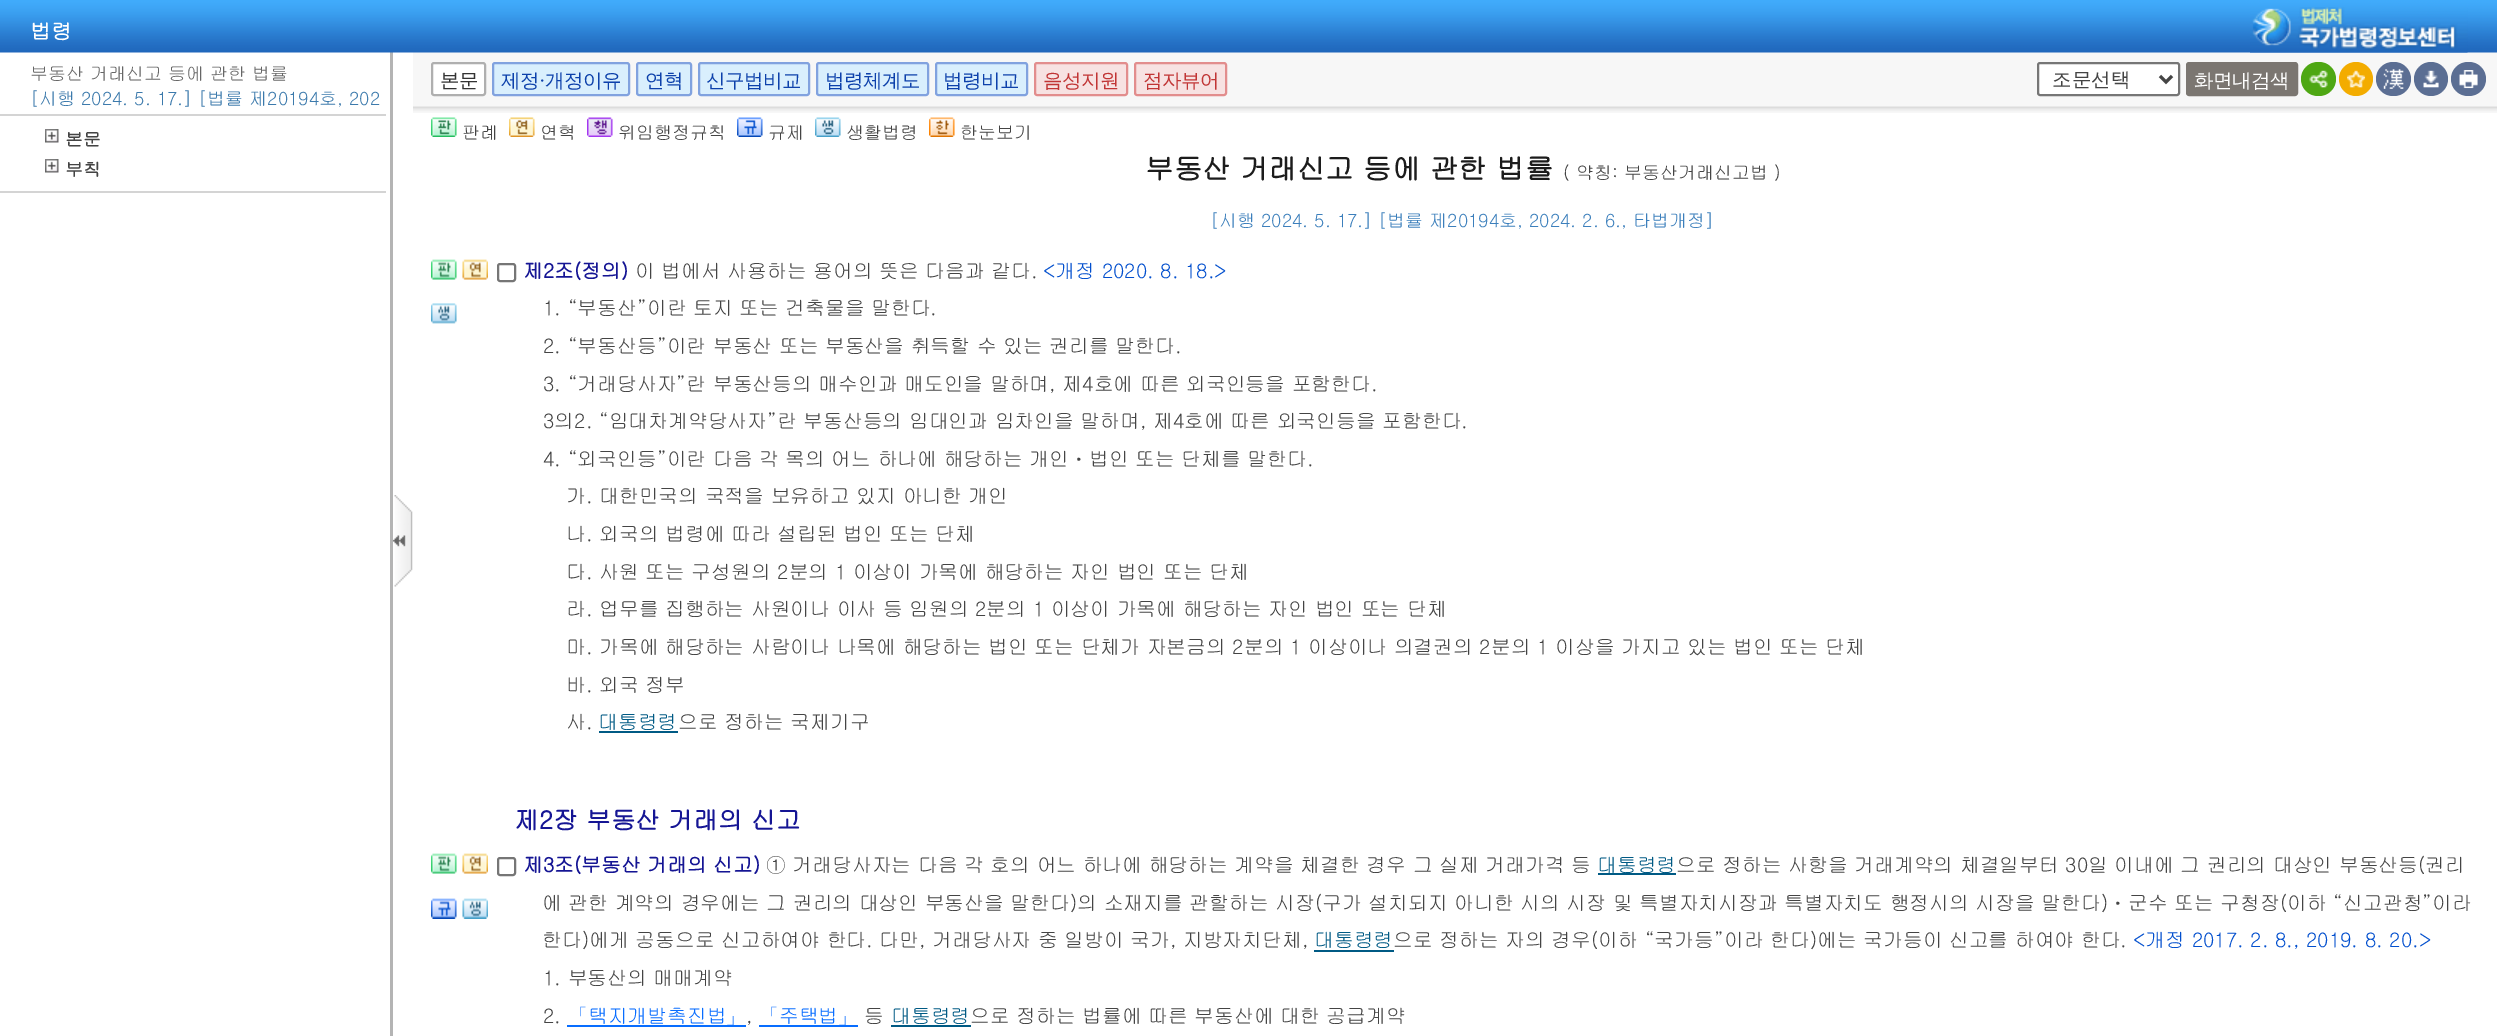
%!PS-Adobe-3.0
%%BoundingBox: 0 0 2497 1036
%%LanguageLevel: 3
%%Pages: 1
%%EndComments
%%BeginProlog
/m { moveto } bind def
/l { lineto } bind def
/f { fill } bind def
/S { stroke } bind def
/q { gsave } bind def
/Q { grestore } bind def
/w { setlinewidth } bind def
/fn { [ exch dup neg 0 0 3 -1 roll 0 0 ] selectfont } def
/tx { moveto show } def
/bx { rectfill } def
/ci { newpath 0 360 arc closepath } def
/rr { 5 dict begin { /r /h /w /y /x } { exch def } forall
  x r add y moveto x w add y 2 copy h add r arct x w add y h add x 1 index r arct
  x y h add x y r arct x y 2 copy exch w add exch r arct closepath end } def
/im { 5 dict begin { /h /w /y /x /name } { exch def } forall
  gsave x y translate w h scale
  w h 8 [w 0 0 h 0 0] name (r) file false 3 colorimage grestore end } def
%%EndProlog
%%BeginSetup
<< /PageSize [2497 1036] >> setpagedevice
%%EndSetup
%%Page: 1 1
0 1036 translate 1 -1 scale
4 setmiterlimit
1 setgray
0 0 2497 1036 bx
0.969 setgray
413 52 2084 61 bx
0.706 setgray
390 51 3 985 bx
(image0.raw) 0 0 2497 53 im
/Gulim-Bold 21 fn
1 setgray
(법령) 30 39 tx
(image1.raw) 2250 7 218 46 im
0.831 setgray
0 191 386 2 bx
/Gulim-Regular 18 fn
0.4 setgray
(부동산 거래신고 등에 관한 법률) 30 80 tx
0.235 0.478 0.675 setrgbcolor
([시행 2024. 5. 17.] [법률 제20194호, 202) 30 105 tx
0.831 setgray
0 114 386 2 bx
(image2.raw) 45 129 14 14 im
/Gulim-Bold 18 fn
0.267 setgray
(본문) 65 146 tx
(image2.raw) 45 159 14 14 im
(부칙) 65 176 tx
(image3.raw) 413 106 2084 6 im
1 setgray
432 63 53 32 2 rr q f Q
0.686 setgray
2 w
S
/WenQuanYiZenHei-Medium 19.5 fn
0.2 setgray
440 87 m -0.5 0 (본문) ashow
0.851 0.937 0.992 setrgbcolor
493 63 136 32 2 rr q f Q
0.506 0.635 0.875 setrgbcolor
S
0.051 0.255 0.671 setrgbcolor
501 87 m -0.5 0 (제정) ashow
/LiberationSerif-Regular 19.5 fn
539 87 m -0.5 0 (·) ashow
/WenQuanYiZenHei-Medium 19.5 fn
545 87 m -0.5 0 (개정이유) ashow
0.851 0.937 0.992 setrgbcolor
637 63 54 32 2 rr q f Q
0.506 0.635 0.875 setrgbcolor
S
0.051 0.255 0.671 setrgbcolor
645 87 m -0.5 0 (연혁) ashow
0.851 0.937 0.992 setrgbcolor
699 63 110 32 2 rr q f Q
0.506 0.635 0.875 setrgbcolor
S
0.051 0.255 0.671 setrgbcolor
706 87 m -0.5 0 (신구법비교) ashow
0.851 0.937 0.992 setrgbcolor
817 63 111 32 2 rr q f Q
0.506 0.635 0.875 setrgbcolor
S
0.051 0.255 0.671 setrgbcolor
825 87 m -0.5 0 (법령체계도) ashow
0.851 0.937 0.992 setrgbcolor
936 63 91 32 2 rr q f Q
0.506 0.635 0.875 setrgbcolor
S
0.051 0.255 0.671 setrgbcolor
943 87 m -0.5 0 (법령비교) ashow
0.969 0.886 0.886 setrgbcolor
1035 63 92 32 2 rr q f Q
0.886 0.553 0.553 setrgbcolor
S
0.757 0.208 0.208 setrgbcolor
1043 87 m -0.5 0 (음성지원) ashow
0.969 0.886 0.886 setrgbcolor
1135 63 91 32 2 rr q f Q
0.886 0.553 0.553 setrgbcolor
S
0.757 0.208 0.208 setrgbcolor
1143 87 m -0.5 0 (점자뷰어) ashow
1 setgray
2038 63 141 32 2 rr q f Q
0.463 setgray
S
0.267 setgray
3 w
2160 76 m 2166 82 l 2172 76 l S
(조문선택) 2052 86 tx
0.482 0.463 0.443 setrgbcolor
2187 63 110 32 2 rr q f Q
2 w
S
1 setgray
2194 87 m -0.5 0 (화면내검색) ashow
0.306 0.655 0.075 setrgbcolor
2301 62 35 34 17 rr f
(image4.raw) 2309 70 19 18 im
0.953 0.675 0 setrgbcolor
2356 79 17 ci f
(image5.raw) 2347 70 19 18 im
0.357 0.431 0.576 setrgbcolor
2376 62 35 34 17 rr f
(image6.raw) 2383 69 21 20 im
2431 79 17 ci f
(image7.raw) 2423 70 16 18 im
2451 62 35 34 17 rr f
(image8.raw) 2459 70 19 19 im
(image9.raw) 431 117 26 20 im
/Gulim-Regular 18 fn
0.267 setgray
(판례) 462 139 tx
(image10.raw) 509 117 26 20 im
(연혁) 540 139 tx
(image11.raw) 587 117 26 20 im
(위임행정규칙) 618 139 tx
(image12.raw) 737 117 26 20 im
(규제) 768 139 tx
(image13.raw) 815 117 26 20 im
(생활법령) 846 139 tx
(image14.raw) 929 117 26 20 im
(한눈보기) 960 139 tx
/Gulim-Bold 28.5 fn
0.11 setgray
(부동산 거래신고 등에 관한 법률) 1145 179 tx
/Gulim-Regular 18 fn
0.267 setgray
(\( 약칭: 부동산거래신고법 \)) 1563 179 tx
0.235 0.498 0.737 setrgbcolor
([시행 2024. 5. 17.] [법률 제20194호, 2024. 2. 6., 타법개정]) 1210 227 tx
(image15.raw) 431 259 26 21 im
(image16.raw) 462 259 26 21 im
(image17.raw) 431 303 26 21 im
0.463 setgray
498 264 17 17 2 rr S
/Gulim-Bold 19.8 fn
0.082 0.082 0.58 setrgbcolor
(제2조\(정의\)) 523 278 tx
/Gulim-Regular 19.8 fn
0.267 setgray
(이 법에서 사용하는 용어의 뜻은 다음과 같다.) 635 278 tx
0.008 0.31 0.808 setrgbcolor
(<개정 2020. 8. 18.>) 1043 278 tx
0.267 setgray
(1. “부동산”이란 토지 또는 건축물을 말한다.) 543 315 tx
(2. “부동산등”이란 부동산 또는 부동산을 취득할 수 있는 권리를 말한다.) 543 353 tx
(3. “거래당사자”란 부동산등의 매수인과 매도인을 말하며, 제4호에 따른 외국인등을 포함한다.) 543 391 tx
(3의2. “임대차계약당사자”란 부동산등의 임대인과 임차인을 말하며, 제4호에 따른 외국인등을 포함한다.) 543 428 tx
(4. “외국인등”이란 다음 각 목의 어느 하나에 해당하는 개인ㆍ법인 또는 단체를 말한다.) 543 466 tx
(가. 대한민국의 국적을 보유하고 있지 아니한 개인) 566 503 tx
(나. 외국의 법령에 따라 설립된 법인 또는 단체) 566 541 tx
(다. 사원 또는 구성원의 2분의 1 이상이 가목에 해당하는 자인 법인 또는 단체) 566 579 tx
(라. 업무를 집행하는 사원이나 이사 등 임원의 2분의 1 이상이 가목에 해당하는 자인 법인 또는 단체) 566 616 tx
(마. 가목에 해당하는 사람이나 나목에 해당하는 법인 또는 단체가 자본금의 2분의 1 이상이나 의결권의 2분의 1 이상을 가지고 있는 법인 또는 단체) 566 654 tx
(바. 외국 정부) 566 692 tx
(사.) 566 729 tx
0 0.353 0.518 setrgbcolor
(대통령령) 598 729 tx
599 731 79 2 bx
0.267 setgray
(으로 정하는 국제기구) 678 729 tx
/Gulim-Bold 24.75 fn
0.082 0.082 0.58 setrgbcolor
(제2장 부동산 거래의 신고) 514 829 tx
(image15.raw) 431 853 26 21 im
(image16.raw) 462 853 26 21 im
(image18.raw) 431 898 26 21 im
(image19.raw) 462 898 26 21 im
0.463 setgray
498 858 17 17 2 rr S
/Gulim-Bold 19.8 fn
0.082 0.082 0.58 setrgbcolor
(제3조\(부동산 거래의 신고\)) 523 872 tx
/Gulim-Regular 19.8 fn
0.267 setgray
(① 거래당사자는 다음 각 호의 어느 하나에 해당하는 계약을 체결한 경우 그 실제 거래가격 등) 766 872 tx
0 0.353 0.518 setrgbcolor
(대통령령) 1597 872 tx
1598 873 78 2 bx
0.267 setgray
(으로 정하는 사항을 거래계약의 체결일부터 30일 이내에 그 권리의 대상인 부동산등\(권리) 1676 872 tx
(에 관한 계약의 경우에는 그 권리의 대상인 부동산을 말한다\)의 소재지를 관할하는 시장\(구가 설치되지 아니한 시의 시장 및 특별자치시장과 특별자치도 행정시의 시장을 말한다\)ㆍ군수 또는 구청장\(이하 “신고관청”이라) 542 910 tx
(한다\)에게 공동으로 신고하여야 한다. 다만, 거래당사자 중 일방이 국가, 지방자치단체,) 542 947 tx
0 0.353 0.518 setrgbcolor
(대통령령) 1314 947 tx
1314 950 80 2 bx
0.267 setgray
(으로 정하는 자의 경우\(이하 “국가등”이라 한다\)에는 국가등이 신고를 하여야 한다.) 1393 947 tx
0.008 0.31 0.808 setrgbcolor
(<개정 2017. 2. 8., 2019. 8. 20.>) 2133 947 tx
0.267 setgray
(1. 부동산의 매매계약) 543 985 tx
(2.) 543 1023 tx
0.031 0.427 1 setrgbcolor
567 1025 179 2 bx
(「택지개발촉진법」) 568 1023 tx
0.267 setgray
(,) 746 1023 tx
0.031 0.427 1 setrgbcolor
759 1025 99 2 bx
(「주택법」) 759 1023 tx
0.267 setgray
(등) 864 1023 tx
0 0.353 0.518 setrgbcolor
(대통령령) 891 1023 tx
891 1025 80 2 bx
0.267 setgray
(으로 정하는 법률에 따른 부동산에 대한 공급계약) 970 1023 tx
(image20.raw) 393 495 20 92 im
showpage
%%EOF
